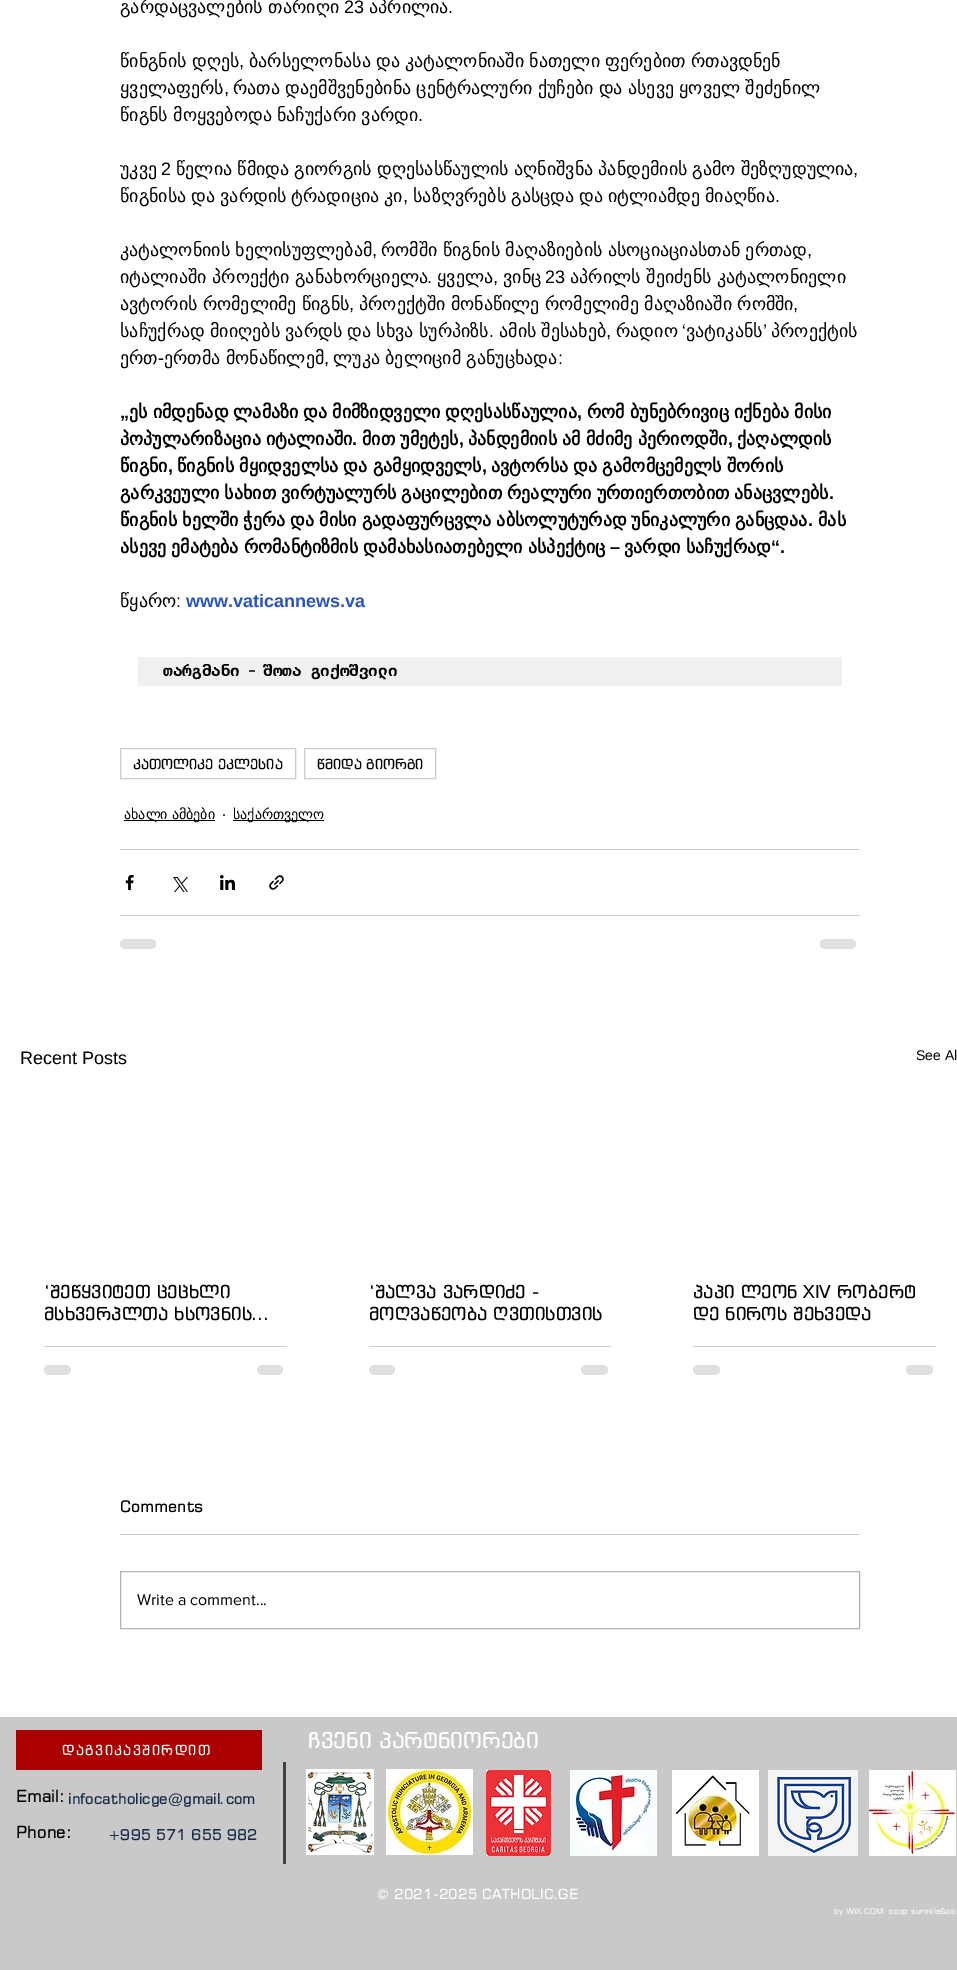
%!PS-Adobe-3.0
%%BoundingBox: 0 0 957 1970
%%LanguageLevel: 3
%%Pages: 1
%%EndComments
%%BeginProlog
/m { moveto } bind def
/f { fill } bind def
/fn { [ exch dup neg 0 0 3 -1 roll 0 0 ] selectfont } def
/tx { moveto show } def
/bx { rectfill } def
/rr { 5 dict begin { /r /h /w /y /x } { exch def } forall
  x r add y moveto x w add y 2 copy h add r arct x w add y h add x 1 index r arct
  x y h add x y r arct x y 2 copy exch w add exch r arct closepath end } def
/im { 5 dict begin { /h /w /y /x /name } { exch def } forall
  gsave x y translate w h scale
  w h 8 [w 0 0 h 0 0] name (r) file false 3 colorimage grestore end } def
%%EndProlog
%%BeginSetup
<< /PageSize [957 1970] >> setpagedevice
%%EndSetup
%%Page: 1 1
0 1970 translate 1 -1 scale
4 setmiterlimit
1 setgray
0 0 957 1970 bx
/DejaVuSans-Regular 18 fn
0 setgray
(გარდაცვალების თარიღი) 120 13 tx
/LiberationSans-Regular 18 fn
(23) 344 13 tx
/DejaVuSans-Regular 18 fn
(აპრილია) 369 13 tx
/LiberationSans-Regular 18 fn
(.) 448 13 tx
/DejaVuSans-Regular 18 fn
120 67 m -0.5 0 32 (წინგნის დღეს) widthshow
/LiberationSans-Regular 18 fn
(,) 239 67 tx
/DejaVuSans-Regular 18 fn
249 67 m -0.5 0 32 (ბარსელონასა და კატალონიაში ნათელი ფერებით რთავდნენ) widthshow
(ყველაფერს) 120 94 tx
/LiberationSans-Regular 18 fn
(,) 224 94 tx
/DejaVuSans-Regular 18 fn
233 94 m -0.5 0 32 (რათა დაემშვენებინა ცენტრალური ქუჩები და ასევე ყოველ შეძენილ) widthshow
120 121 m -0.5 0 32 (წიგნს მოყვებოდა ნაჩუქარი ვარდი) widthshow
/LiberationSans-Regular 18 fn
(.) 418 121 tx
/DejaVuSans-Regular 18 fn
(უკვე) 120 175 tx
/LiberationSans-Regular 18 fn
(2) 161 175 tx
/DejaVuSans-Regular 18 fn
176 175 m -0.5 0 32 (წელია წმიდა გიორგის დღესასწაულის აღნიშვნა პანდემიის გამო შეზღუდულია) widthshow
/LiberationSans-Regular 18 fn
(,) 853 175 tx
/DejaVuSans-Regular 18 fn
120 202 m -0.75 0 32 (წიგნისა და ვარდის ტრადიცია კი) widthshow
/LiberationSans-Regular 18 fn
(,) 403 202 tx
/DejaVuSans-Regular 18 fn
413 202 m -0.75 0 32 (საზღვრებს გასცდა და იტლიამდე მიაღწია) widthshow
/LiberationSans-Regular 18 fn
(.) 775 202 tx
/DejaVuSans-Regular 18 fn
120 256 m -0.5 0 32 (კატალონიის ხელისუფლებამ) widthshow
/LiberationSans-Regular 18 fn
(,) 372 256 tx
/DejaVuSans-Regular 18 fn
381 256 m -0.5 0 32 (რომში წიგნის მაღაზიების ასოციაციასთან ერთად) widthshow
/LiberationSans-Regular 18 fn
(,) 807 256 tx
/DejaVuSans-Regular 18 fn
(იტალიაში პროექტი განახორციელა) 120 283 tx
/LiberationSans-Regular 18 fn
(.) 427 283 tx
/DejaVuSans-Regular 18 fn
(ყველა) 437 283 tx
/LiberationSans-Regular 18 fn
(,) 493 283 tx
/DejaVuSans-Regular 18 fn
(ვინც) 503 283 tx
/LiberationSans-Regular 18 fn
(23) 545 283 tx
/DejaVuSans-Regular 18 fn
(აპრილს შეიძენს კატალონიელი) 570 283 tx
120 310 m -0.5 0 32 (ავტორის რომელიმე წიგნს) widthshow
/LiberationSans-Regular 18 fn
(,) 349 310 tx
/DejaVuSans-Regular 18 fn
359 310 m -0.5 0 32 (პროექტში მონაწილე რომელიმე მაღაზიაში რომში) widthshow
/LiberationSans-Regular 18 fn
(,) 793 310 tx
/DejaVuSans-Regular 18 fn
120 337 m -0.5 0 32 (საჩუქრად მიიღებს ვარდს და სხვა სურპიზს) widthshow
499 337 m -0.5 0 32 (ამის შესახებ) widthshow
(რადიო) 616 337 tx
/LiberationSans-Regular 18 fn
(‘) 682 337 tx
/DejaVuSans-Regular 18 fn
(ვატიკანს) 686 337 tx
/LiberationSans-Regular 18 fn
(’) 763 337 tx
/DejaVuSans-Regular 18 fn
(პროექტის) 771 337 tx
/LiberationSans-Regular 18 fn
(.) 489 337 tx
(,) 606 337 tx
/DejaVuSans-Regular 18 fn
(ერთ) 120 364 tx
/LiberationSans-Regular 18 fn
(-) 158 364 tx
/DejaVuSans-Regular 18 fn
164 364 m -0.5 0 32 (ერთმა მონაწილემ) widthshow
333 364 m -0.5 0 32 (ლუკა ბელიციმ განუცხადა) widthshow
/LiberationSans-Regular 18 fn
(:) 558 364 tx
(,) 324 364 tx
/LiberationSans-Bold 18 fn
(„) 120 418 tx
/DejaVuSans-Bold 18 fn
129 418 m -0.75 0 32 (ეს იმდენად ლამაზი და მიმზიდველი დღესასწაულია) widthshow
/LiberationSans-Bold 18 fn
(,) 577 418 tx
/DejaVuSans-Bold 18 fn
587 418 m -0.75 0 32 (რომ ბუნებრივიც იქნება მისი) widthshow
120 445 m -0.5 0 32 (პოპულარიზაცია იტალიაში) widthshow
/LiberationSans-Bold 18 fn
(.) 352 445 tx
/DejaVuSans-Bold 18 fn
362 445 m -0.5 0 32 (მით უმეტეს) widthshow
/LiberationSans-Bold 18 fn
(,) 459 445 tx
/DejaVuSans-Bold 18 fn
468 445 m -0.5 0 32 (პანდემიის ამ მძიმე პერიოდში) widthshow
/LiberationSans-Bold 18 fn
(,) 728 445 tx
/DejaVuSans-Bold 18 fn
(ქაღალდის) 737 445 tx
(წიგნი) 120 472 tx
/LiberationSans-Bold 18 fn
(,) 168 472 tx
/DejaVuSans-Bold 18 fn
177 472 m -0.5 0 32 (წიგნის მყიდველსა და გამყიდველს) widthshow
/LiberationSans-Bold 18 fn
(,) 482 472 tx
/DejaVuSans-Bold 18 fn
491 472 m -0.5 0 32 (ავტორსა და გამომცემელს შორის) widthshow
120 499 m -0.75 0 32 (გარკვეული სახით ვირტუალურს გაცილებით რეალური ურთიერთობით ანაცვლებს) widthshow
/LiberationSans-Bold 18 fn
(.) 829 499 tx
/DejaVuSans-Bold 18 fn
120 526 m -0.75 0 32 (წიგნის ხელში ჭერა და მისი გადაფურცვლა აბსოლუტურად უნიკალური განცდაა) widthshow
/LiberationSans-Bold 18 fn
(.) 808 526 tx
/DejaVuSans-Bold 18 fn
(მას) 818 526 tx
120 553 m -0.5 0 32 (ასევე ემატება რომანტიზმის დამახასიათებელი ასპექტიც) widthshow
/LiberationSans-Bold 18 fn
(–) 610 553 tx
/DejaVuSans-Bold 18 fn
624 553 m -0.5 0 32 (ვარდი საჩუქრად) widthshow
/LiberationSans-Bold 18 fn
(“.) 771 553 tx
/DejaVuSans-Regular 18 fn
(წყარო) 120 607 tx
/LiberationSans-Regular 18 fn
(:) 176 607 tx
/LiberationSans-Bold 18 fn
0.165 0.325 0.757 setrgbcolor
(www.vaticannews.va) 186 607 tx
0.941 setgray
138 657 704 29 bx
/DejaVuSansMono-Bold 16 fn
0 setgray
(თარგმანი) 163 676 tx
/Inconsolata-Bold 16 fn
(–) 248 676 tx
/DejaVuSansMono-Bold 16 fn
263 676 m -0.5 0 32 (შოთა გიქოშვილი) widthshow
0.8 setgray
120.5 748.5 175 30 rectstroke
/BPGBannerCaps-Regular 14 fn
0 setgray
(კათოლიკე ეკლესია) 133 769 tx
0.8 setgray
304.5 748.5 131 30 rectstroke
0 setgray
(წმიდა გიორგი) 317 769 tx
124 820 91 1 bx
/DejaVuSans-Regular 14 fn
124 819 m -0.5 0 32 (ახალი ამბები) widthshow
/LiberationSans-Regular 18 fn
(·) 221 820 tx
233 820 91 1 bx
/DejaVuSans-Regular 14 fn
(საქართველო) 233 819 tx
0.8 setgray
120 849 740 1 bx
(image0.raw) 125 875 9 15 im
(image1.raw) 173 877 15 15 im
(image2.raw) 220 875 15 15 im
(image3.raw) 269 875 15 15 im
120 915 740 1 bx
0.878 setgray
120 939 36 10 5 rr f
820 939 36 10 5 rr f
/LiberationSans-Regular 18 fn
0 setgray
(Recent Posts) 20 1064 tx
/LiberationSans-Regular 14 fn
(See Al) 916 1060 tx
/BPGBannerCaps-Regular 18 fn
(‘შეწყვიტეთ ცეცხლი) 44 1298 tx
(მსხვერპლთა ხსოვნის…) 44 1320 tx
0.8 setgray
44 1346 243 1 bx
0.878 setgray
44 1365 27 10 5 rr f
257 1365 26 10 5 rr f
0 setgray
(‘შალვა ვარდიძე -) 369 1298 tx
(მოღვაწეობა ღვთისთვის) 369 1320 tx
0.8 setgray
369 1346 242 1 bx
0.878 setgray
369 1365 26 10 5 rr f
581 1365 27 10 5 rr f
0 setgray
(პაპი ლეონ XIV რობერტ) 693 1298 tx
(დე ნიროს შეხვედა) 693 1320 tx
0.8 setgray
693 1346 243 1 bx
0.878 setgray
693 1365 27 10 5 rr f
906 1365 27 10 5 rr f
/BPGBannerCaps-Regular 16 fn
0 setgray
(Comments) 120 1512 tx
0.8 setgray
120 1534 740 1 bx
0.702 setgray
120.5 1571.5 739 57 rectstroke
/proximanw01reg-Regular 16 fn
0 setgray
(Write a comment...) 137 1605 tx
0.788 setgray
0 1717 957 253 bx
0.667 0 0 setrgbcolor
16 1730 246 40 bx
/BPGBannerCaps-Regular 14 fn
1 setgray
62 1755 m 1.4 0 (დაგვიკავშირდით) ashow
/BPGBannerCaps-Regular 22 fn
(ჩვენი პარტნიორები) 308 1748 tx
/BPGBannerCaps-Regular 17 fn
0 setgray
(Email:) 16 1802 tx
/BPGBannerCaps-Regular 15 fn
0.09 0.165 0.278 setrgbcolor
(infocatholicge@gmail.com) 68 1804 tx
0.259 setgray
283 1762 3 102 bx
(image4.raw) 306 1769 68 86 im
(image5.raw) 386 1769 87 86 im
(image6.raw) 486 1770 65 86 im
(image7.raw) 570 1770 87 86 im
(image8.raw) 672 1770 87 86 im
(image9.raw) 768 1770 90 86 im
(image10.raw) 869 1770 87 86 im
/BPGBannerCaps-Regular 17 fn
0 setgray
(Phone:) 16 1838 tx
/BPGBannerCaps-Regular 15 fn
0.09 0.165 0.278 setrgbcolor
(+995 571 655 982) 108 1840 tx
/BPGBannerCaps-Regular 14 fn
1 setgray
377 1899 m 0.25 0 (© 2021-2025 CATHOLIC.GE) ashow
/BPGBannerCaps-Regular 8 fn
834 1914 m 0.15 0 (by WIX.COM  coop surmile&co) ashow
showpage
%%EOF
